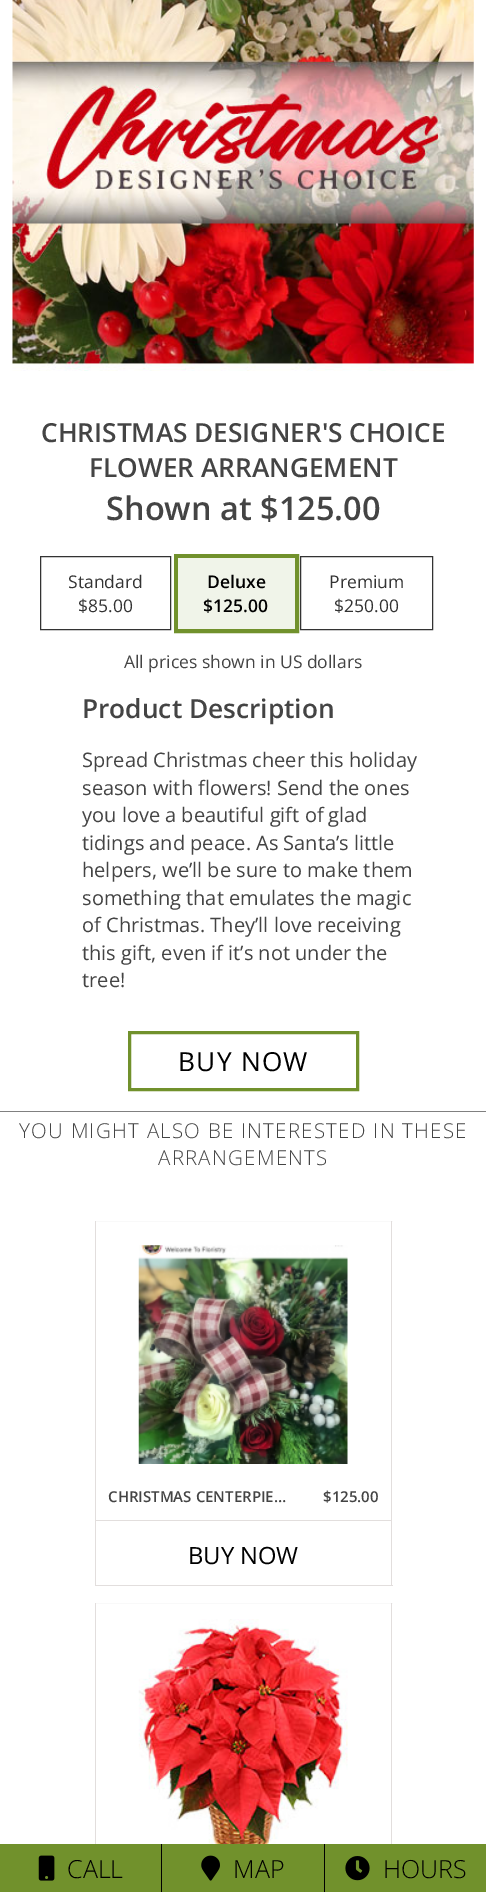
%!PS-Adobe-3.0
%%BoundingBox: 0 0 486 1892
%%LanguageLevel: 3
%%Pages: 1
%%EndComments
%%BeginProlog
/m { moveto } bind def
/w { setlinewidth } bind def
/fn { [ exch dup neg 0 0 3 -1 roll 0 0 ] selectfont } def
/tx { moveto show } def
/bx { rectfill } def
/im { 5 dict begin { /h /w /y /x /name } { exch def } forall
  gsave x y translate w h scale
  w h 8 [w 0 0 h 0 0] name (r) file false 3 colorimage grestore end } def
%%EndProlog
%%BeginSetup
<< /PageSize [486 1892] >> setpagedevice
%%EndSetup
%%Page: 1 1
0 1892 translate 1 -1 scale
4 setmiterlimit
1 setgray
0 0 486 1892 bx
(image0.raw) 12 0 462 371 im
/OpenSans-SemiBold 26.25 fn
0.267 setgray
(CHRISTMAS DESIGNER'S CHOICE) 41 442 tx
(FLOWER ARRANGEMENT) 89 477 tx
/OpenSans-SemiBold 32.5 fn
(Shown at $125.00) 106 520 tx
0.2 setgray
40.5 556.5 130 73 rectstroke
/OpenSans-Regular 17.5 fn
(Standard) 68 588 tx
($85.00) 78 612 tx
0.443 0.569 0.173 setrgbcolor
4 w
176 556 121 75 rectstroke
0.941 0.957 0.914 setrgbcolor
178 558 117 71 bx
/OpenSans-SemiBold 17.5 fn
0 setgray
(Deluxe) 207 588 tx
($125.00) 203 612 tx
0.2 setgray
1 w
300.5 556.5 132 73 rectstroke
/OpenSans-Regular 17.5 fn
(Premium) 329 588 tx
($250.00) 334 612 tx
0.267 setgray
(All prices shown in US dollars) 124 668 tx
/OpenSans-SemiBold 26.25 fn
(Product Description) 82 718 tx
/OpenSans-Regular 20 fn
(Spread Christmas cheer this holiday) 82 767 tx
(season with flowers! Send the ones) 82 795 tx
(you love a beautiful gift of glad) 82 822 tx
(tidings and peace. As Santa’s little) 82 850 tx
(helpers, we’ll be sure to make them) 82 877 tx
(something that emulates the magic) 82 905 tx
(of Christmas. They’ll love receiving) 82 932 tx
(this gift, even if it’s not under the) 82 960 tx
(tree!) 82 987 tx
0.443 0.569 0.173 setrgbcolor
3 w
129.5 1032.5 228 57 rectstroke
/OpenSans-Regular 26.25 fn
0 setgray
178 1071 m 1.25 0 (BUY NOW) ashow
0.502 setgray
0 1111 486 1 bx
/OpenSans-Light 20.5 fn
0.267 setgray
19 1138 m 1.25 0 (YOU MIGHT ALSO BE INTERESTED IN THESE) ashow
158 1165 m 1.25 0 (ARRANGEMENTS) ashow
0.976 setgray
95 1221 298 1 bx
0.886 0.871 0.867 setrgbcolor
391 1221 1 365 bx
95 1585 298 1 bx
95 1221 1 365 bx
(image1.raw) 138 1245 210 219 im
/OpenSans-SemiBold 15 fn
0.267 setgray
(CHRISTMAS CENTERPIE…) 108 1502 tx
($125.00) 323 1502 tx
0.886 0.871 0.867 setrgbcolor
96 1520 295 1 bx
/OpenSans-Regular 23.75 fn
0 setgray
(BUY NOW) 188 1564 tx
0.976 setgray
95 1603 298 1 bx
0.886 0.871 0.867 setrgbcolor
391 1603 1 241 bx
95 1603 1 241 bx
(image2.raw) 138 1619 210 225 im
0.443 0.569 0.173 setrgbcolor
0 1844 324 48 bx
(image3.raw) 38 1855 17 26 im
/OpenSans-Light 25 fn
0 setgray
(CALL) 67 1878 tx
161 1844 1 48 bx
(image4.raw) 201 1855 19 26 im
(MAP) 233 1878 tx
0.443 0.569 0.173 setrgbcolor
325 1844 161 48 bx
0 setgray
324 1844 1 48 bx
(image5.raw) 345 1856 25 25 im
(HOURS) 383 1878 tx
showpage
%%EOF
